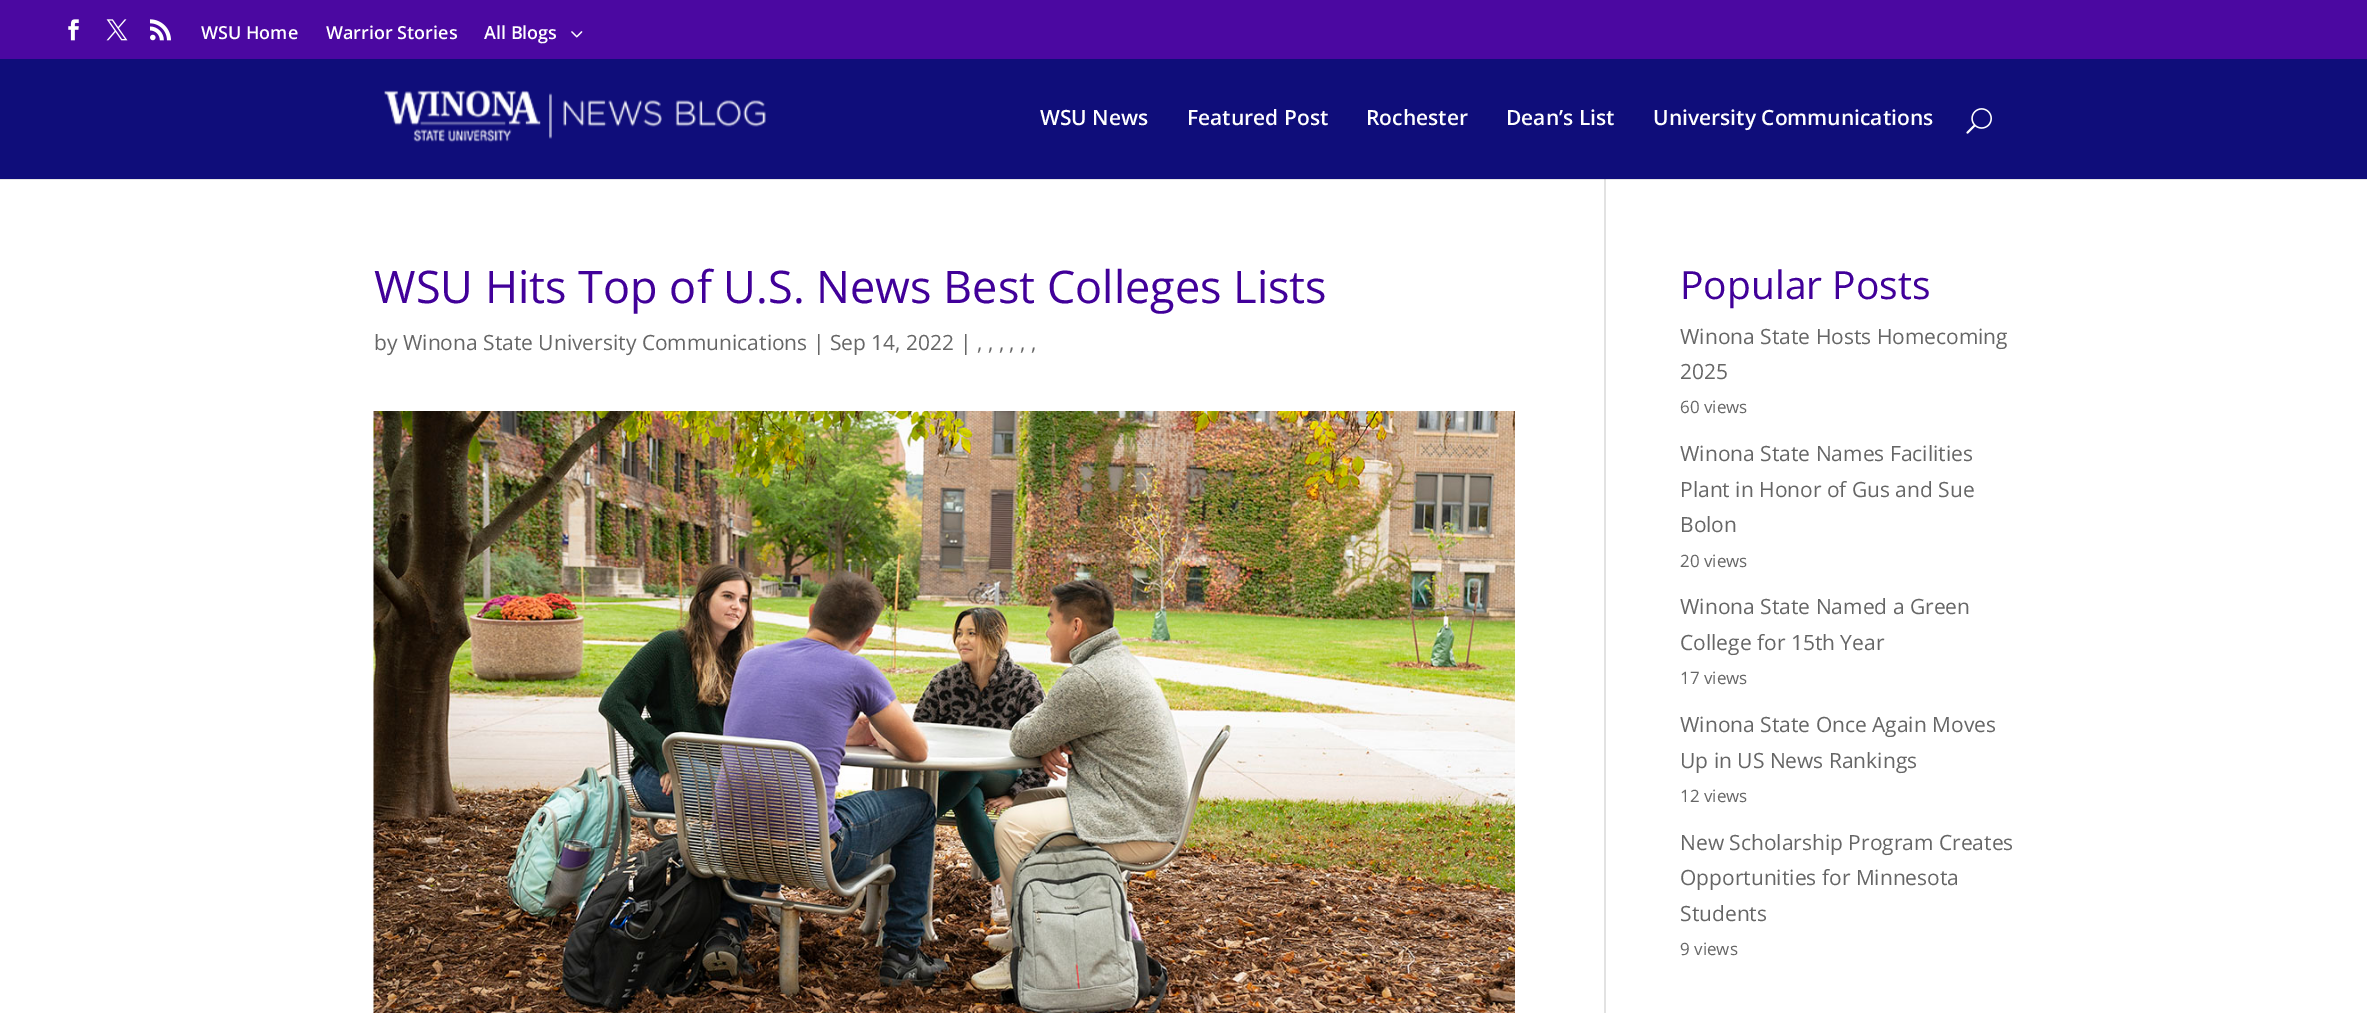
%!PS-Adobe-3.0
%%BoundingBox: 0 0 2367 1013
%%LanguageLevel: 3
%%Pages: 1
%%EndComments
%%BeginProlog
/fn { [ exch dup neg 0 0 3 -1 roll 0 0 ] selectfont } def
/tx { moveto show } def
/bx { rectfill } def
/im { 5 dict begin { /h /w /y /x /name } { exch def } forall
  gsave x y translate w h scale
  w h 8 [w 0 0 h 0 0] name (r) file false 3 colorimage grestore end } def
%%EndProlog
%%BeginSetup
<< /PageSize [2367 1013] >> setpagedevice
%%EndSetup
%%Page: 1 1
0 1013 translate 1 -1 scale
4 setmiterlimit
1 setgray
0 0 2367 1013 bx
0.902 setgray
0 179 2367 1 bx
0.294 0.031 0.631 setrgbcolor
0 0 2367 59 bx
(image0.raw) 68 19 11 22 im
(image1.raw) 106 19 22 22 im
(image2.raw) 150 19 21 22 im
/OpenSans-SemiBold 18 fn
1 setgray
(WSU Home) 201 39 tx
(Warrior Stories) 326 39 tx
(All Blogs) 484 39 tx
(image3.raw) 571 31 12 7 im
0.886 setgray
1604 177 2 836 bx
0.059 0.051 0.478 setrgbcolor
0 59 2367 120 bx
(image4.raw) 384 90 382 53 im
/OpenSans-SemiBold 21 fn
1 setgray
(WSU News) 1040 125 tx
(Featured Post) 1187 125 tx
(Rochester) 1366 125 tx
(Dean’s List) 1506 125 tx
(University Communications) 1653 125 tx
(image5.raw) 1966 108 26 26 im
0.796 setgray
1604 179 2 1 bx
/OpenSans-Regular 45 fn
0.255 0 0.6 setrgbcolor
(WSU Hits Top of U.S. News Best Colleges Lists) 374 303 tx
/OpenSans-Regular 21 fn
0.4 setgray
(by Winona State University Communications | Sep 14, 2022 | , , , , , ,) 374 350 tx
(image6.raw) 373 411 1142 602 im
/OpenSans-Regular 39 fn
0.255 0 0.6 setrgbcolor
(Popular Posts) 1680 299 tx
/OpenSans-Regular 21 fn
0.4 setgray
(Winona State Hosts Homecoming) 1680 344 tx
(2025) 1680 379 tx
/OpenSans-Regular 17 fn
(60 views) 1680 413 tx
/OpenSans-Regular 21 fn
(Winona State Names Facilities) 1680 461 tx
(Plant in Honor of Gus and Sue) 1680 497 tx
(Bolon) 1680 532 tx
/OpenSans-Regular 17 fn
(20 views) 1680 567 tx
/OpenSans-Regular 21 fn
(Winona State Named a Green) 1680 614 tx
(College for 15th Year) 1680 650 tx
/OpenSans-Regular 17 fn
(17 views) 1680 684 tx
/OpenSans-Regular 21 fn
(Winona State Once Again Moves) 1680 732 tx
(Up in US News Rankings) 1680 768 tx
/OpenSans-Regular 17 fn
(12 views) 1680 802 tx
/OpenSans-Regular 21 fn
(New Scholarship Program Creates) 1680 850 tx
(Opportunities for Minnesota) 1680 885 tx
(Students) 1680 921 tx
/OpenSans-Regular 17 fn
(9 views) 1680 955 tx
showpage
%%EOF
